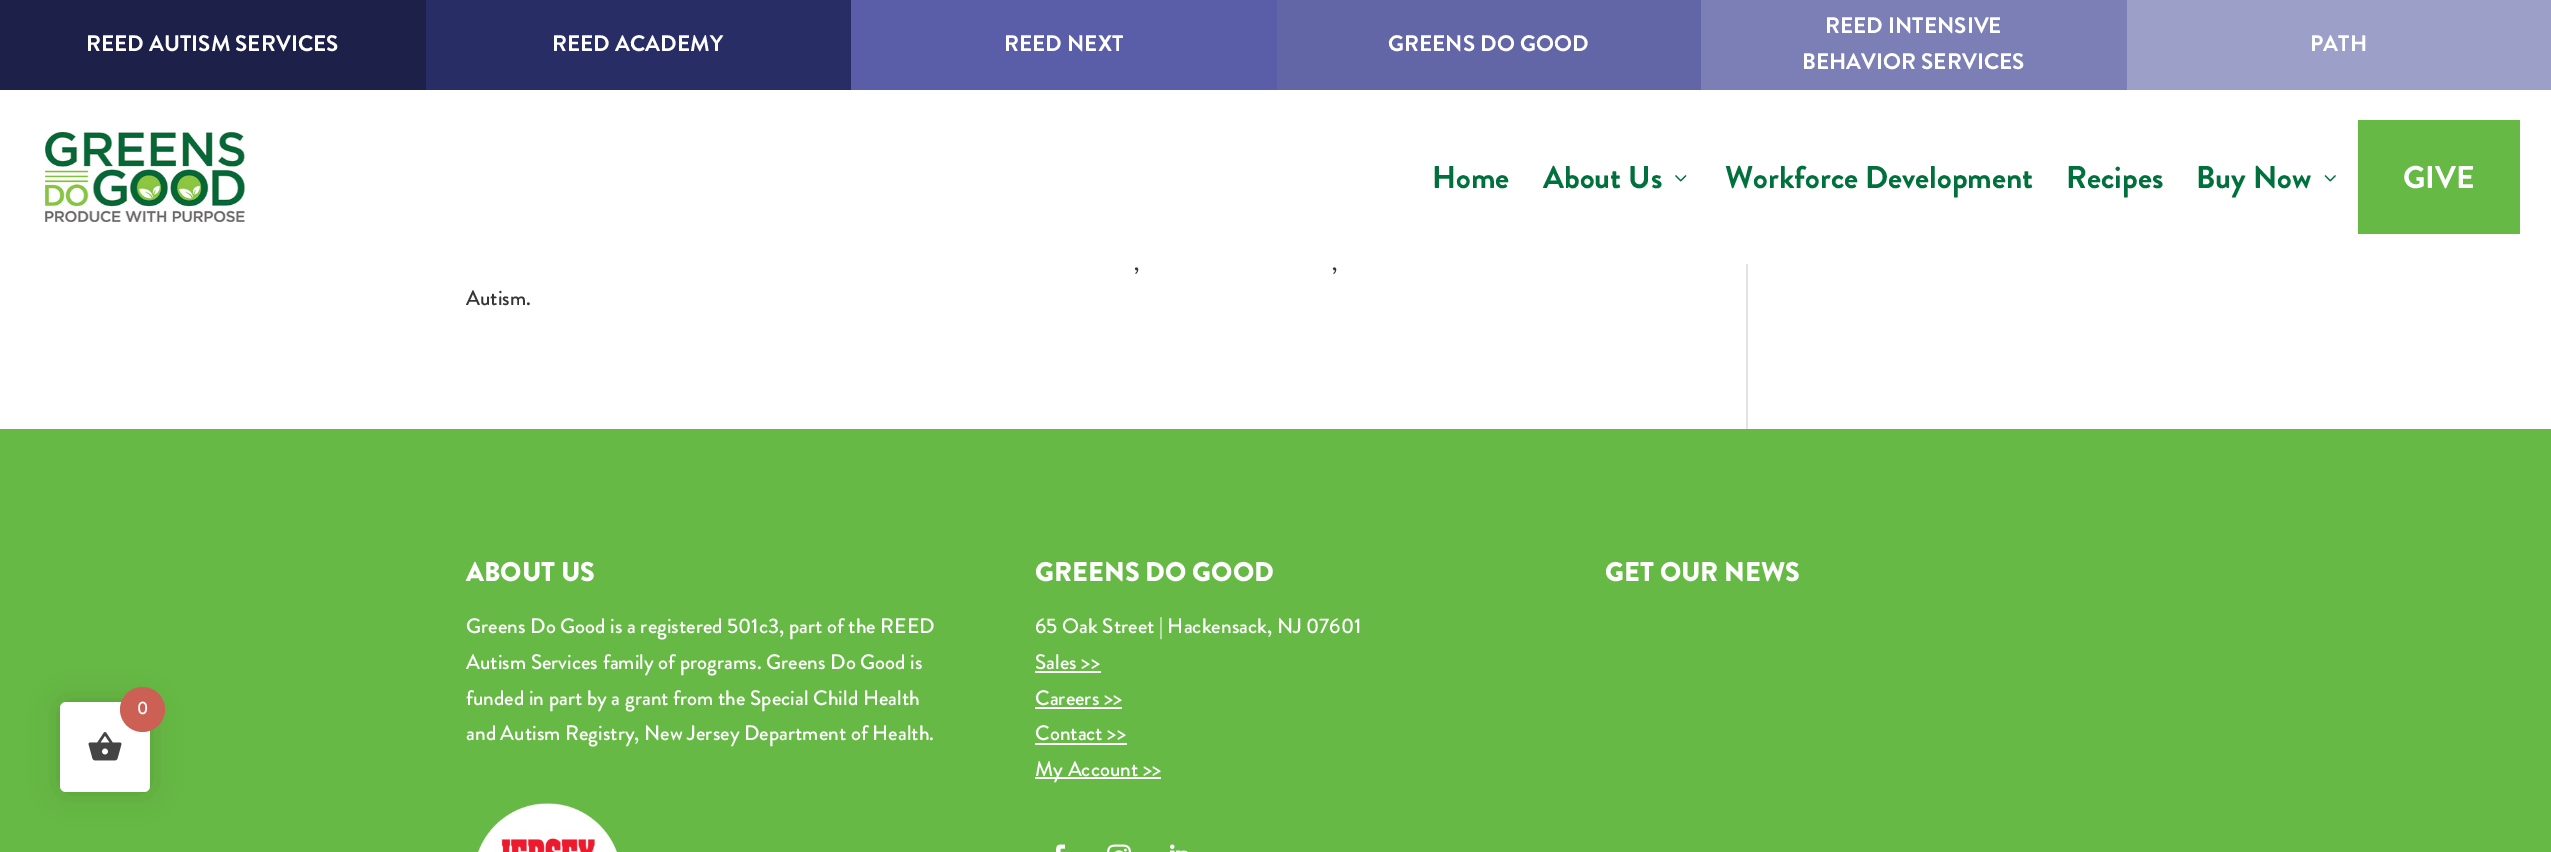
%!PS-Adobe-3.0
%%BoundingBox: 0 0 2551 852
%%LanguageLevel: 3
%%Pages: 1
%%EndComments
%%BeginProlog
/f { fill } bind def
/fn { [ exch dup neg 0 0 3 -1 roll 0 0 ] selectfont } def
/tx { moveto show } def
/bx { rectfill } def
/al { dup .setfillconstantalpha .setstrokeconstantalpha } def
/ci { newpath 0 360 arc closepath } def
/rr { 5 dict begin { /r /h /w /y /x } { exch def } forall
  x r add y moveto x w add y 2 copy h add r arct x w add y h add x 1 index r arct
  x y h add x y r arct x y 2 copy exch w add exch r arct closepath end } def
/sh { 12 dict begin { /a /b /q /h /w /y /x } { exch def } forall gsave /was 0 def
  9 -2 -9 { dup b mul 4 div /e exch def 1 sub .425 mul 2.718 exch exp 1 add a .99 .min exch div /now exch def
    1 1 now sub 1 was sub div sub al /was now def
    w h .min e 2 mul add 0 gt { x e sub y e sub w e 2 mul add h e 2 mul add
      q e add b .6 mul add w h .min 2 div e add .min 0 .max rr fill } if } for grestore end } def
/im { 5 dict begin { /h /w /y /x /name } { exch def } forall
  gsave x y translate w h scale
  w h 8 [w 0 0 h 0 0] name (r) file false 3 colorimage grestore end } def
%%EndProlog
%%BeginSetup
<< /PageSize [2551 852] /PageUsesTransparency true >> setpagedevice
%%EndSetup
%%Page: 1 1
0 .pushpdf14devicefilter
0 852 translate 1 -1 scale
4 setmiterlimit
1 setgray
0 0 2551 852 bx
0.612 0.624 0.784 setrgbcolor
2127 0 424 90 bx
0.114 0.125 0.286 setrgbcolor
0 0 426 90 bx
/BrandonGrotesque-Bold 22.5 fn
1 setgray
(REED AUTISM SERVICES) 86 51 tx
0.161 0.176 0.4 setrgbcolor
426 0 425 90 bx
1 setgray
(REED ACADEMY) 552 51 tx
0.353 0.365 0.659 setrgbcolor
851 0 426 90 bx
1 setgray
(REED NEXT) 1004 51 tx
0.384 0.4 0.655 setrgbcolor
1277 0 424 90 bx
1 setgray
(GREENS DO GOOD) 1388 51 tx
0.486 0.498 0.714 setrgbcolor
1701 0 426 90 bx
1 setgray
(REED INTENSIVE) 1825 33 tx
(BEHAVIOR SERVICES) 1802 69 tx
(PATH) 2310 51 tx
(image0.raw) 45 132 200 90 im
/BrandonGrotesque-Bold 31.5 fn
0 0.439 0.235 setrgbcolor
(Home) 1432 188 tx
(About Us) 1543 188 tx
(image1.raw) 1675 175 12 7 im
(Workforce Development) 1725 188 tx
(Recipes) 2066 188 tx
(Buy Now) 2196 188 tx
(image2.raw) 2324 175 12 7 im
0.4 0.725 0.271 setrgbcolor
2358 120 162 114 bx
1 setgray
(GIVE) 2403 188 tx
/BrandonGrotesque-Medium 21 fn
0.208 setgray
(,) 1134 270 tx
(,) 1332 270 tx
(Autism.) 466 305 tx
0.886 setgray
1746 264 2 165 bx
0.4 0.725 0.271 setrgbcolor
0 429 2551 423 bx
/BrandonGrotesque-Black 27 fn
1 setgray
(ABOUT US) 466 581 tx
/BrandonGrotesque-Medium 21 fn
(Greens Do Good is a registered 501c3, part of the REED) 466 633 tx
(Autism Services family of programs. Greens Do Good is) 466 669 tx
(funded in part by a grant from the Special Child Health) 466 705 tx
(and Autism Registry, New Jersey Department of Health.) 466 740 tx
(image3.raw) 478 803 139 49 im
/BrandonGrotesque-Black 27 fn
(GREENS DO GOOD) 1035 581 tx
/BrandonGrotesque-Medium 21 fn
(65 Oak Street | Hackensack, NJ 07601) 1035 633 tx
(Sales >>) 1035 669 tx
1035 671 66 2 bx
(Careers >>) 1035 705 tx
1035 707 87 2 bx
(Contact >>) 1035 740 tx
1035 743 92 2 bx
1035 777 126 2 bx
(My Account >>) 1035 776 tx
(image4.raw) 1056 844 10 8 im
(image5.raw) 1107 844 24 8 im
(image6.raw) 1170 844 18 8 im
/BrandonGrotesque-Black 27 fn
(GET OUR NEWS) 1605 581 tx
0 setgray
60 702 90 90 6 15 0.15 sh
1 setgray
60 702 90 90 6 rr f
0.8 0.376 0.333 setrgbcolor
142.5 709.5 22.5 ci f
/BrandonGrotesque-Medium 18 fn
1 setgray
(0) 137 714 tx
(image7.raw) 88 732 34 29 im
.poppdf14devicefilter showpage
%%EOF
